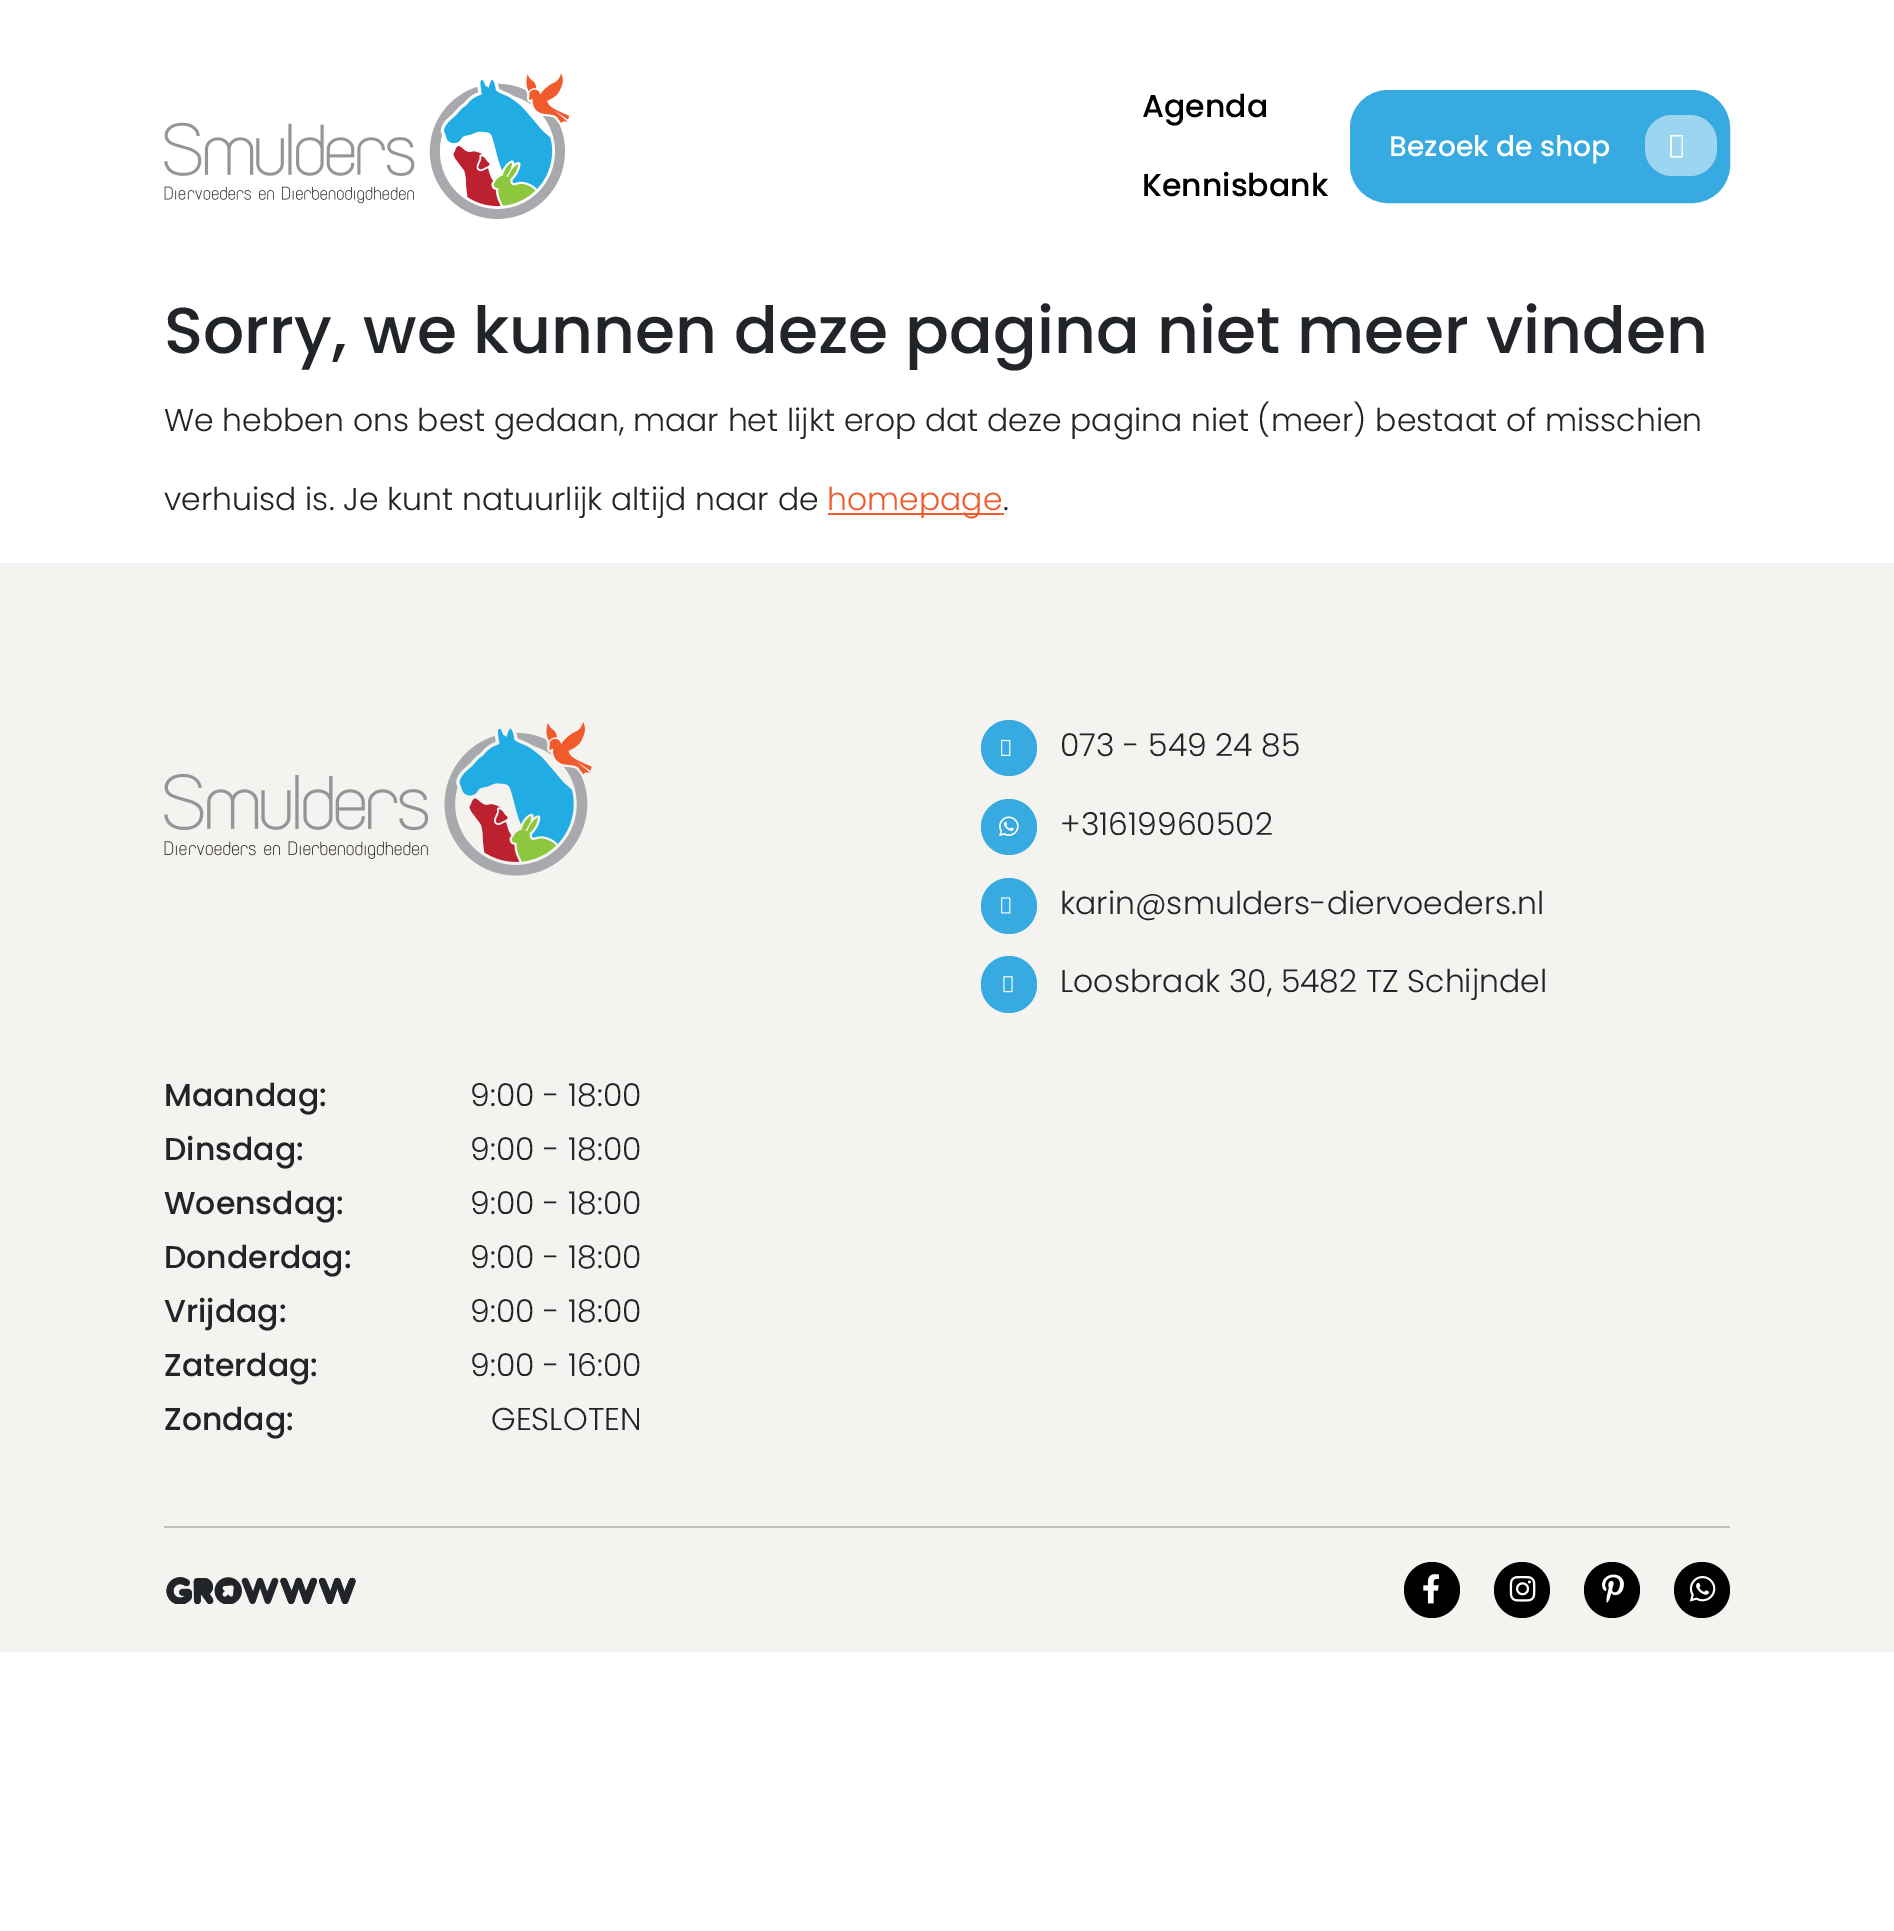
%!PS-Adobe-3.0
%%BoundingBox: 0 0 1894 1931
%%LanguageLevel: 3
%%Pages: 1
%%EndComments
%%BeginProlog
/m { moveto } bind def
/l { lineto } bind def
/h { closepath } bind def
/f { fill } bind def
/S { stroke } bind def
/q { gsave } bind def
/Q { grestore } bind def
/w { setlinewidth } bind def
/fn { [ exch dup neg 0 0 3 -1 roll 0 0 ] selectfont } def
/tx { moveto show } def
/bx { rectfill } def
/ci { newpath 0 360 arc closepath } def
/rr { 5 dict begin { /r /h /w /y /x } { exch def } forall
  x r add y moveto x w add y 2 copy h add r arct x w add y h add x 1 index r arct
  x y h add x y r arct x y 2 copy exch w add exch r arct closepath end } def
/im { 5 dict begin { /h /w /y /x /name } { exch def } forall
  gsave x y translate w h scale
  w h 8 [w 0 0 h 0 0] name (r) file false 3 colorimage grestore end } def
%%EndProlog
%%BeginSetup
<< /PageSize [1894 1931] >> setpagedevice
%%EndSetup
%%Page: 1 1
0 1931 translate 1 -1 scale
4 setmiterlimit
1 setgray
0 0 1894 1931 bx
(image0.raw) 164 73 405 146 im
/Poppins-Medium 31.5 fn
0 setgray
(Agenda) 1142 117 tx
(Kennisbank) 1142 196 tx
0.212 0.667 0.882 setrgbcolor
1351 91 378 111 37 rr q f Q
2 w
S
/Poppins-Medium 28.25 fn
1 setgray
(Bezoek de shop) 1389 156 tx
0.608 0.835 0.941 setrgbcolor
1645 115 72 61 27 rr f
1 setgray
1670 157.5 m 1670 135 l 1683 135 l 1683 157.5 l h 1672 156 m 1681.5 156 l 1681.5 136.5 l 1672 136.5 l h f
/Poppins-Medium 64.75 fn
0.129 0.145 0.161 setrgbcolor
(Sorry, we kunnen deze pagina niet meer vinden) 164 353 tx
/Poppins-Light 31.5 fn
(We hebben ons best gedaan, maar het lijkt erop dat deze pagina niet \(meer\) bestaat of misschien) 164 431 tx
(verhuisd is. Je kunt natuurlijk altijd naar de) 164 510 tx
0.945 0.353 0.173 setrgbcolor
828 513 176 2 bx
(homepage) 827 510 tx
0.129 0.145 0.161 setrgbcolor
(.) 1003 510 tx
0.961 0.953 0.941 setrgbcolor
0 563 1894 1089 bx
(image1.raw) 164 722 428 154 im
0.212 0.667 0.882 setrgbcolor
1009 748 28 ci f
(image2.raw) 1001 739 10 17 im
0.129 0.145 0.161 setrgbcolor
(073 - 549 24 85) 1060 756 tx
0.212 0.667 0.882 setrgbcolor
1009 827 28 ci f
(image3.raw) 999 816 20 21 im
0.129 0.145 0.161 setrgbcolor
(+31619960502) 1060 835 tx
0.212 0.667 0.882 setrgbcolor
1009 906 28 ci f
(image4.raw) 1001 897 10 17 im
0.129 0.145 0.161 setrgbcolor
(karin@smulders-diervoeders.nl) 1060 914 tx
0.212 0.667 0.882 setrgbcolor
981 956 56 57 28 rr f
(image5.raw) 1003 976 10 17 im
0.129 0.145 0.161 setrgbcolor
(Loosbraak 30, 5482 TZ Schijndel) 1060 992 tx
/Poppins-Medium 31.5 fn
(Maandag:) 164 1106 tx
/Poppins-Light 31.5 fn
(9:00 - 18:00) 470 1106 tx
/Poppins-Medium 31.5 fn
(Dinsdag:) 164 1160 tx
/Poppins-Light 31.5 fn
(9:00 - 18:00) 470 1160 tx
/Poppins-Medium 31.5 fn
(Woensdag:) 164 1214 tx
/Poppins-Light 31.5 fn
(9:00 - 18:00) 470 1214 tx
/Poppins-Medium 31.5 fn
(Donderdag:) 164 1268 tx
/Poppins-Light 31.5 fn
(9:00 - 18:00) 470 1268 tx
/Poppins-Medium 31.5 fn
(Vrijdag:) 164 1322 tx
/Poppins-Light 31.5 fn
(9:00 - 18:00) 470 1322 tx
/Poppins-Medium 31.5 fn
(Zaterdag:) 164 1376 tx
/Poppins-Light 31.5 fn
(9:00 - 16:00) 470 1376 tx
/Poppins-Medium 31.5 fn
(Zondag:) 164 1430 tx
/Poppins-Light 31.5 fn
(GESLOTEN) 491 1430 tx
0.753 0.753 0.745 setrgbcolor
164 1526 1566 2 bx
(image6.raw) 166 1577 190 27 im
0 setgray
1432 1590 28 ci f
(image7.raw) 1423 1574 16 30 im
1522 1590 28 ci f
(image8.raw) 1509 1576 27 26 im
1612 1590 28 ci f
(image9.raw) 1602 1574 22 29 im
1702 1590 28 ci f
(image10.raw) 1689 1576 27 26 im
showpage
%%EOF
